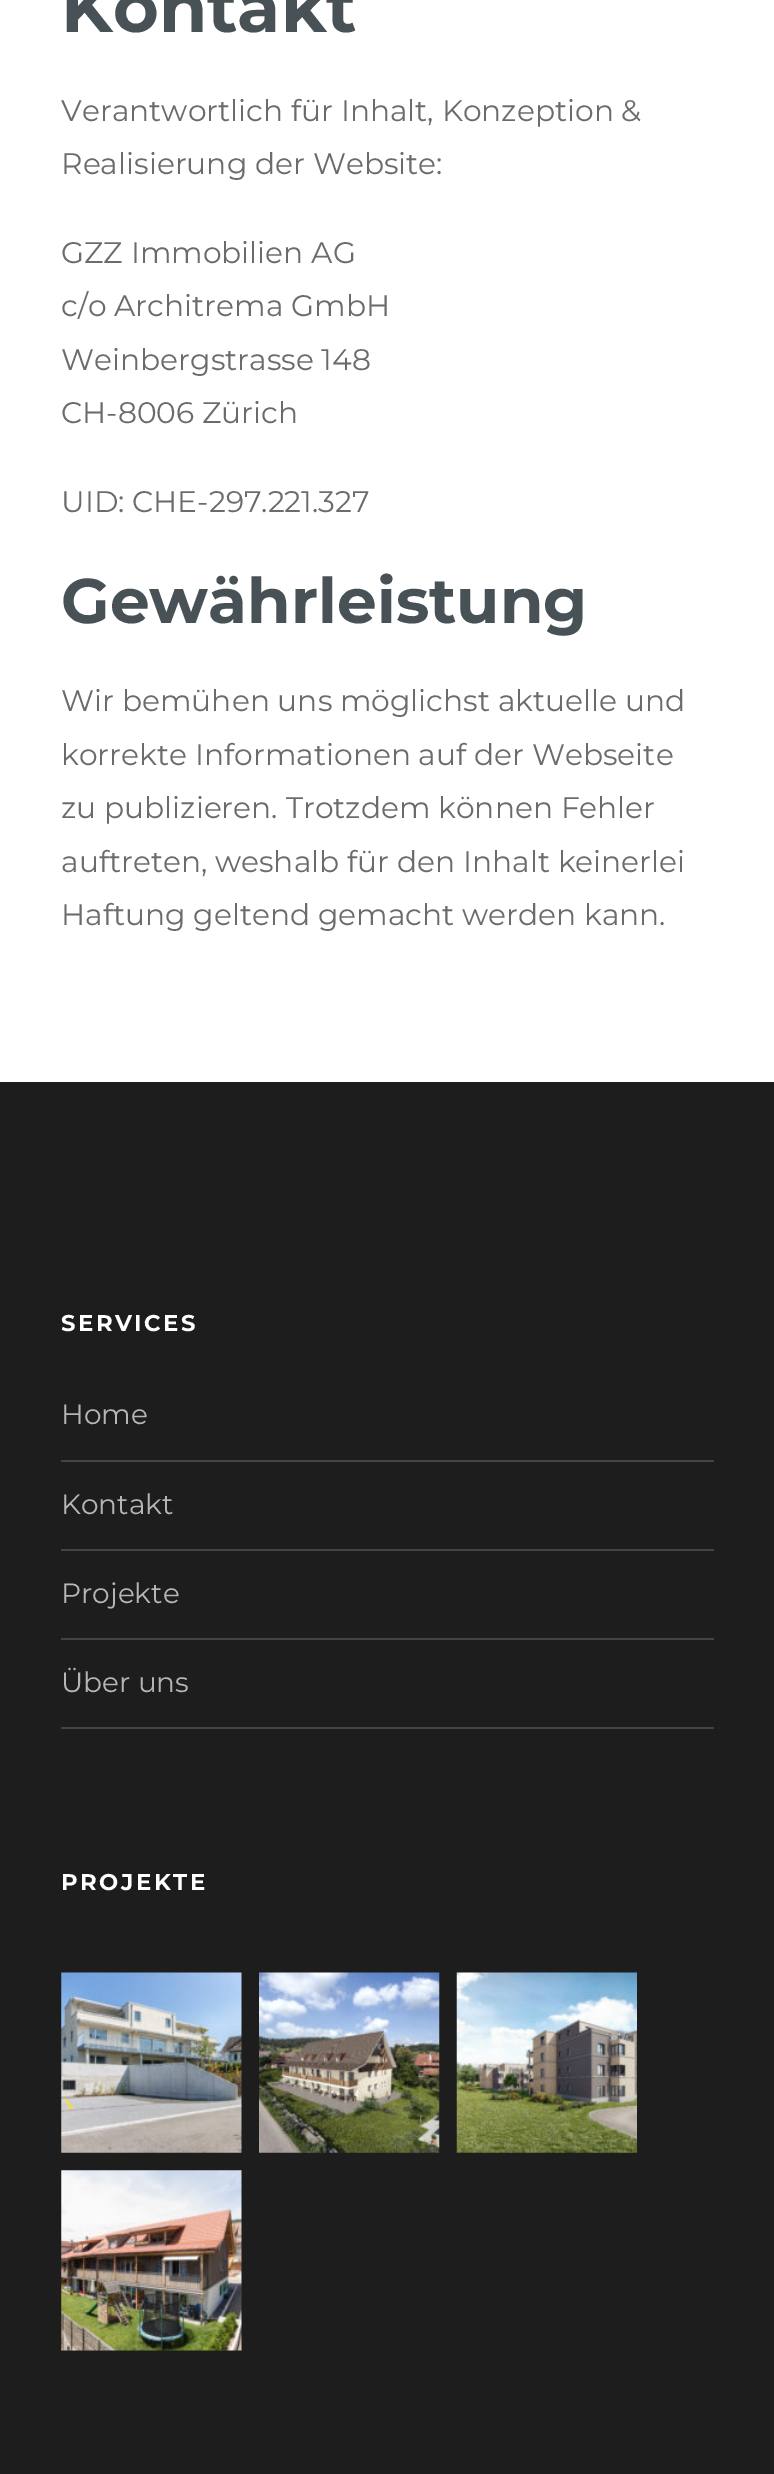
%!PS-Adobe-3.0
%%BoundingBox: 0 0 774 2474
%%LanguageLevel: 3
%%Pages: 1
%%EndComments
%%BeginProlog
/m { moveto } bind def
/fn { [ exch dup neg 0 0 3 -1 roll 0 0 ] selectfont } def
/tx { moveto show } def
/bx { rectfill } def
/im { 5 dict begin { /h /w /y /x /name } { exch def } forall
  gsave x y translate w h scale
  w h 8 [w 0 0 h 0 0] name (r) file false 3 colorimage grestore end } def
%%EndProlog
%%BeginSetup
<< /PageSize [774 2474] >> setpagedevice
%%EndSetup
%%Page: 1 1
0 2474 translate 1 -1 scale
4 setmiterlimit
1 setgray
0 0 774 2474 bx
/Montserrat-Bold 70 fn
0.282 0.318 0.337 setrgbcolor
(Kontakt) 61 32 tx
/Montserrat-Regular 29.75 fn
0.42 setgray
(Verantwortlich für Inhalt, Konzeption &) 61 121 tx
(Realisierung der Website:) 61 174 tx
(GZZ Immobilien AG) 61 263 tx
(c/o Architrema GmbH) 61 316 tx
(Weinbergstrasse 148) 61 370 tx
(CH-8006 Zürich) 61 423 tx
(UID: CHE-297.221.327) 61 512 tx
/Montserrat-Bold 63 fn
0.282 0.318 0.337 setrgbcolor
(Gewährleistung) 61 623 tx
/Montserrat-Regular 29.75 fn
0.42 setgray
(Wir bemühen uns möglichst aktuelle und) 61 711 tx
(korrekte Informationen auf der Webseite) 61 765 tx
(zu publizieren. Trotzdem können Fehler) 61 818 tx
(auftreten, weshalb für den Inhalt keinerlei) 61 872 tx
(Haftung geltend gemacht werden kann.) 61 925 tx
0.114 setgray
0 1082 774 1392 bx
/Montserrat-Bold 22.75 fn
1 setgray
61 1331 m 2.5 0 (SERVICES) ashow
0.267 setgray
61 1460 653 2 bx
/Montserrat-Regular 28 fn
0.714 setgray
(Home) 61 1424 tx
0.267 setgray
61 1549 653 2 bx
0.714 setgray
(Kontakt) 61 1514 tx
0.267 setgray
61 1638 653 2 bx
0.714 setgray
(Projekte) 61 1603 tx
0.267 setgray
61 1727 653 2 bx
0.714 setgray
(Über uns) 61 1692 tx
/Montserrat-Bold 22.75 fn
1 setgray
61 1890 m 2.5 0 (PROJEKTE) ashow
(image0.raw) 61 1972 181 181 im
(image1.raw) 259 1972 181 181 im
(image2.raw) 456 1972 181 181 im
(image3.raw) 61 2170 181 181 im
showpage
%%EOF
